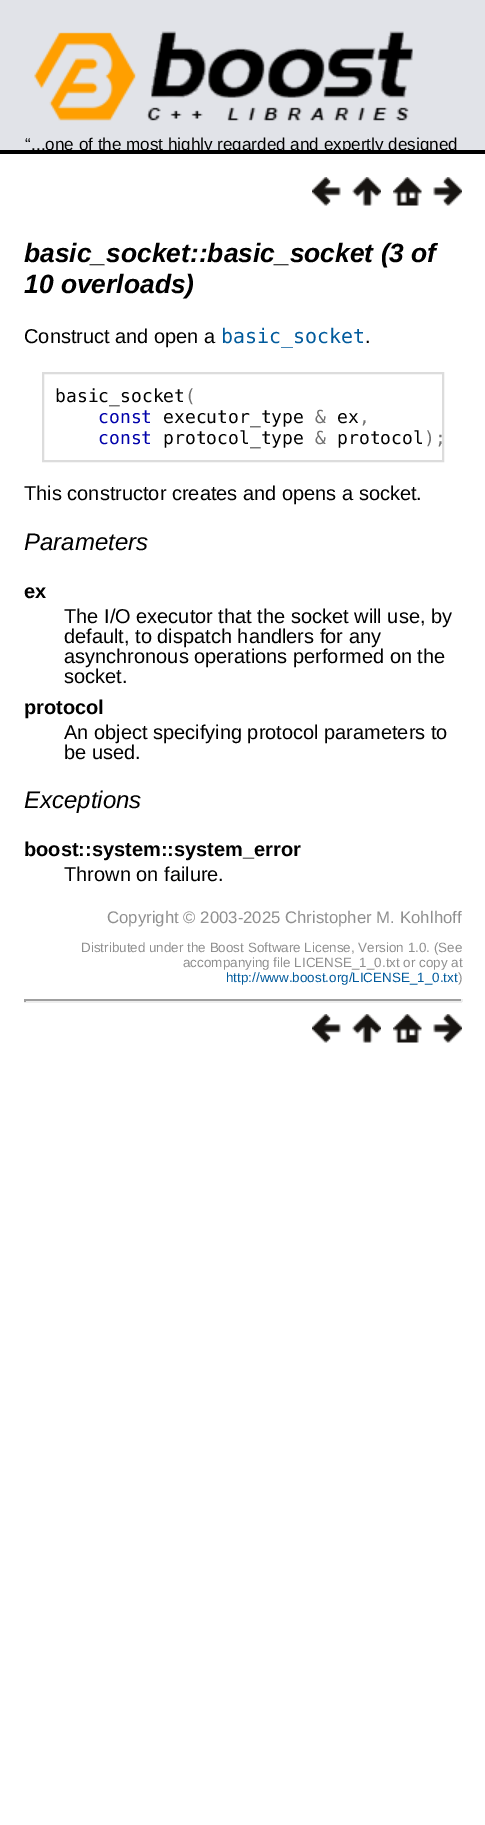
%!PS-Adobe-3.0
%%BoundingBox: 0 0 485 1825
%%LanguageLevel: 3
%%Pages: 1
%%EndComments
%%BeginProlog
/q { gsave } bind def
/Q { grestore } bind def
/w { setlinewidth } bind def
/fn { [ exch dup neg 0 0 3 -1 roll 0 0 ] selectfont } def
/tx { moveto show } def
/bx { rectfill } def
/im { 5 dict begin { /h /w /y /x /name } { exch def } forall
  gsave x y translate w h scale
  w h 8 [w 0 0 h 0 0] name (r) file false 3 colorimage grestore end } def
%%EndProlog
%%BeginSetup
<< /PageSize [485 1825] >> setpagedevice
%%EndSetup
%%Page: 1 1
0 1825 translate 1 -1 scale
4 setmiterlimit
1 setgray
0 0 485 1825 bx
0.882 0.89 0.91 setrgbcolor
0 0 485 150 bx
0 setgray
0 150 485 4 bx
(image0.raw) 34 31 379 90 im
/LiberationSans-Regular 17.1 fn
(“) 25 150 tx
q
0 0 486 150 rectclip
(...one of the most highly regarded and expertly designed) 31 150 tx
Q
(image1.raw) 312 177 29 29 im
(image2.raw) 352 177 29 29 im
(image3.raw) 393 177 29 29 im
(image4.raw) 433 177 29 29 im
/LiberationSans-BoldItalic 26.4 fn
(basic_socket::basic_socket \(3 of) 24 262 tx
(10 overloads\)) 24 293 tx
/LiberationSans-Regular 20 fn
(Construct and open a) 24 343 tx
/DejaVuSansMono-Regular 20 fn
0 0.353 0.612 setrgbcolor
(basic_socket) 221 343 tx
/LiberationSans-Regular 20 fn
0 setgray
(.) 365 343 tx
0.863 setgray
2 w
43 373 400 88 rectstroke
/DejaVuSansMono-Regular 18 fn
0 setgray
(basic_socket) 55 402 tx
0.439 setgray
(\() 185 402 tx
0 0 0.667 setrgbcolor
(const) 98 423 tx
0 setgray
(executor_type) 163 423 tx
0.439 setgray
(&) 315 423 tx
0 setgray
(ex) 337 423 tx
0.439 setgray
(,) 359 423 tx
0 0 0.667 setrgbcolor
(const) 98 444 tx
0 setgray
(protocol_type) 163 444 tx
0.439 setgray
(&) 315 444 tx
0 setgray
(protocol) 337 444 tx
0.439 setgray
(\);) 424 444 tx
/LiberationSans-Regular 20 fn
0 setgray
(This constructor creates and opens a socket.) 24 500 tx
/LiberationSans-Italic 24 fn
(Parameters) 24 550 tx
/LiberationSans-Bold 20 fn
(ex) 24 598 tx
/LiberationSans-Regular 20 fn
(The I/O executor that the socket will use, by) 64 623 tx
(default, to dispatch handlers for any) 64 643 tx
(asynchronous operations performed on the) 64 663 tx
(socket.) 64 683 tx
/LiberationSans-Bold 20 fn
(protocol) 24 714 tx
/LiberationSans-Regular 20 fn
(An object specifying protocol parameters to) 64 739 tx
(be used.) 64 759 tx
/LiberationSans-Italic 24 fn
(Exceptions) 24 808 tx
/LiberationSans-Bold 20 fn
(boost::system::system_error) 24 856 tx
/LiberationSans-Regular 20 fn
(Thrown on failure.) 64 881 tx
/LiberationSans-Regular 16.75 fn
0.561 setgray
(Copyright © 2003-2025 Christopher M.) 107 923 tx
(Kohlhoff) 400 923 tx
/LiberationSans-Regular 13.45 fn
(Distributed under the Boost Software License, Version 1.0. \(See) 81 952 tx
(accompanying file LICENSE_1_0.txt or copy at) 183 967 tx
0 0.353 0.612 setrgbcolor
(http://www.boost.org/LICENSE_1_0.txt) 226 982 tx
0.561 setgray
(\)) 458 982 tx
0.624 setgray
24 999 438 2 bx
0.933 setgray
461 999 2 3 bx
24 1001 438 2 bx
0.624 setgray
24 999 2 3 bx
(image1.raw) 312 1014 29 29 im
(image2.raw) 352 1014 29 29 im
(image3.raw) 393 1014 29 29 im
(image4.raw) 433 1014 29 29 im
showpage
%%EOF
